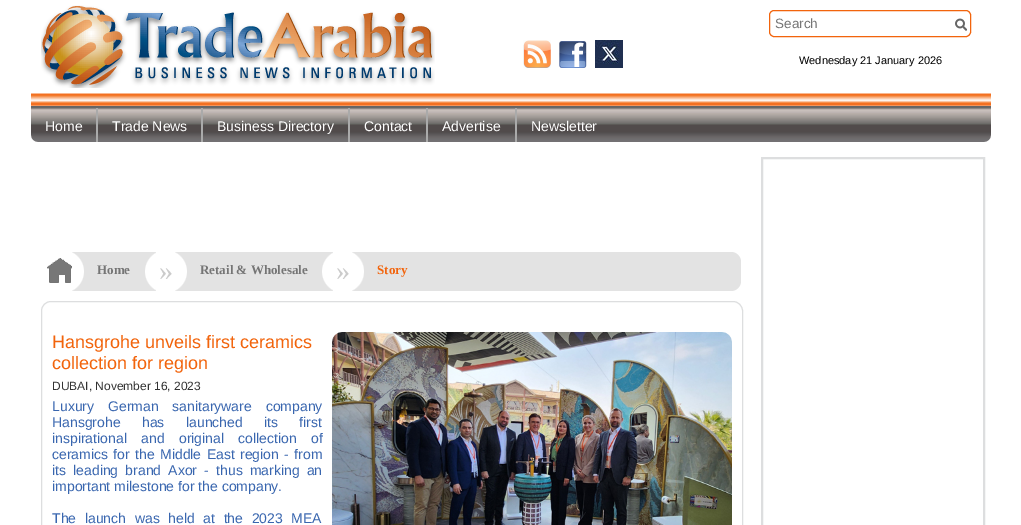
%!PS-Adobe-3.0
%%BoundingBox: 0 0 1021 525
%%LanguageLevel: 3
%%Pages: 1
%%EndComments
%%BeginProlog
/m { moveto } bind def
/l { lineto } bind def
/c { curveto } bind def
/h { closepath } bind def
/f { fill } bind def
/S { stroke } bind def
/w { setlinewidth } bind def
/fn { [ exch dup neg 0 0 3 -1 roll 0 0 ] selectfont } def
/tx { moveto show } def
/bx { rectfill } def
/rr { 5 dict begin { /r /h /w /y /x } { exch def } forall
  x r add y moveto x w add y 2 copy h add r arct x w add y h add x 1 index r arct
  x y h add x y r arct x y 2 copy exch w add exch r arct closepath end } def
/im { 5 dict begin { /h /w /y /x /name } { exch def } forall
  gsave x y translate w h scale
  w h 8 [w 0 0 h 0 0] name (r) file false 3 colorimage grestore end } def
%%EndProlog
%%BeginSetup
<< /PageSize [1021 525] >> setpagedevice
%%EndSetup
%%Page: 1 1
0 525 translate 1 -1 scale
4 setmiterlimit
1 setgray
0 0 1021 525 bx
(image0.raw) 41 5 394 83 im
(image1.raw) 523 40 28 28 im
(image2.raw) 559 41 28 27 im
(image3.raw) 595 40 28 28 im
(image4.raw) 955 18 12 13 im
0.949 0.392 0.047 setrgbcolor
769.5 10.5 201 26 4.5 rr S
/LiberationSans-Regular 13.5 fn
0.459 setgray
(Search) 775 28 tx
/LiberationSans-Regular 11 fn
0 setgray
(Wednesday 21 January 2026) 799 64 tx
(image5.raw) 31 93 960 49 im
0.667 setgray
96 108 2 34 bx
/LiberationSans-Regular 14 fn
1 setgray
(Home) 45 131 tx
0.667 setgray
201 108 2 34 bx
1 setgray
(Trade News) 112 131 tx
0.667 setgray
348 108 2 34 bx
1 setgray
(Business Directory) 217 131 tx
0.667 setgray
426 108 2 34 bx
1 setgray
(Contact) 364 131 tx
0.667 setgray
515 108 2 34 bx
1 setgray
(Advertise) 442 131 tx
(Newsletter) 531 131 tx
0.89 setgray
41 252 m 731 252 l 736.5 252 741 256.5 741 262 c 741 281 l 741 286.5 736.5 291 731 291 c 41 291 l h f
1 setgray
41 252 31 39 bx
(image6.raw) 47 258 25 25 im
(image7.raw) 72 252 12 39 im
/LiberationSerif-Bold 13 fn
0.459 setgray
(Home) 97 274 tx
1 setgray
156 252 19 39 bx
(image8.raw) 145 252 11 39 im
(image7.raw) 175 252 12 39 im
0.459 setgray
(Retail & Wholesale) 200 274 tx
1 setgray
333 252 19 39 bx
(image8.raw) 322 252 11 39 im
(image9.raw) 352 252 12 39 im
0.949 0.392 0.047 setrgbcolor
(Story) 377 274 tx
/LiberationSerif-Regular 28 fn
0.796 setgray
(») 159 280 tx
(») 336 280 tx
0.867 0.871 0.875 setrgbcolor
41.5 301.5 701 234 9.5 rr S
/LiberationSans-Regular 18 fn
0.949 0.392 0.047 setrgbcolor
(Hansgrohe unveils first ceramics) 52 348 tx
(collection for region) 52 369 tx
(image10.raw) 332 332 400 193 im
/LiberationSans-Regular 12 fn
0.2 setgray
(DUBAI, November 16, 2023) 52 390 tx
/LiberationSans-Regular 14 fn
0.224 0.4 0.686 setrgbcolor
52 411 m 10 0 32 (Luxury German sanitaryware company) widthshow
52 427 m 17.5 0 32 (Hansgrohe has launched its first) widthshow
52 443 m 10.5 0 32 (inspirational and original collection of) widthshow
52 459 m 1.5 0 32 (ceramics for the Middle East region - from) widthshow
52 475 m 3.25 0 32 (its leading brand Axor - thus marking an) widthshow
(important milestone for the company.) 52 491 tx
52 523 m 4.75 0 32 (The launch was held at the 2023 MEA) widthshow
0.867 0.871 0.875 setrgbcolor
2 w
762 158 222 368 rectstroke
showpage
%%EOF
